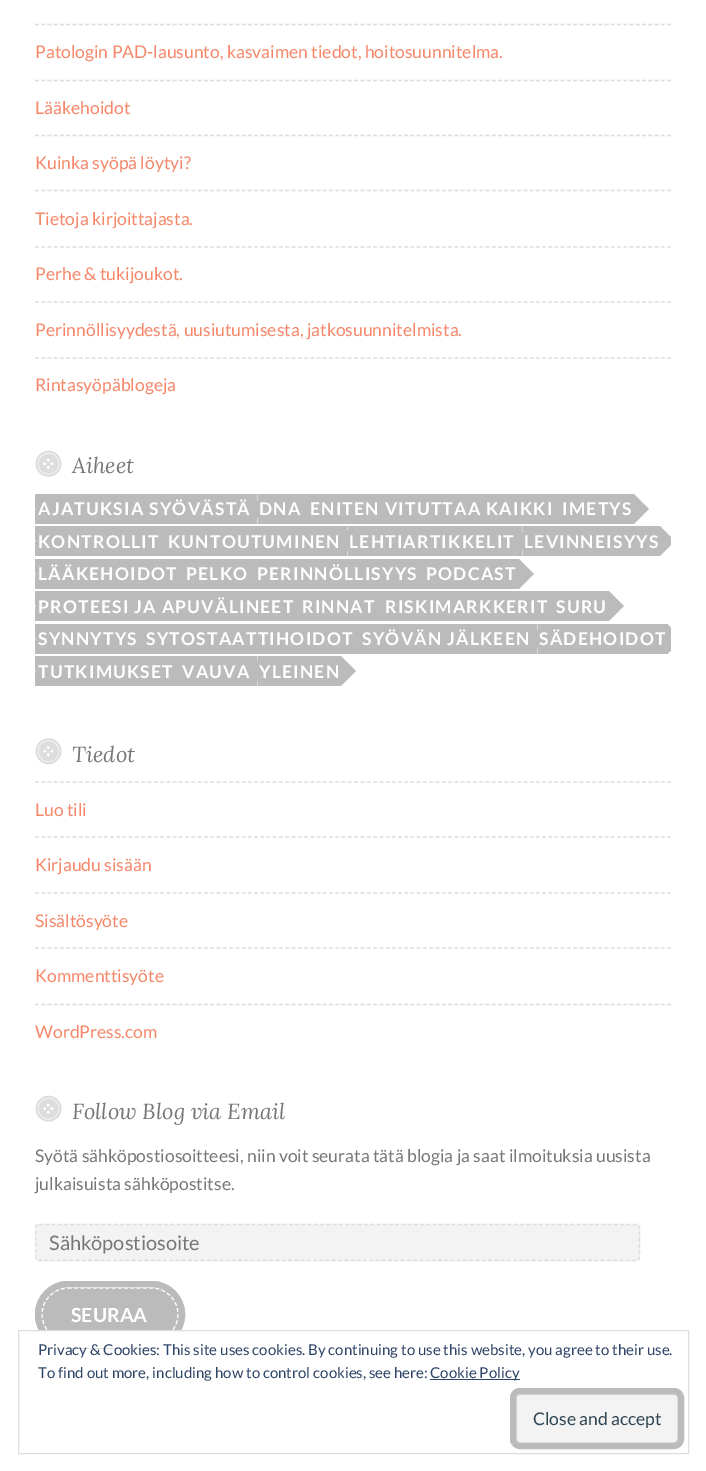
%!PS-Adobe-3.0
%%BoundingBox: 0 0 706 1471
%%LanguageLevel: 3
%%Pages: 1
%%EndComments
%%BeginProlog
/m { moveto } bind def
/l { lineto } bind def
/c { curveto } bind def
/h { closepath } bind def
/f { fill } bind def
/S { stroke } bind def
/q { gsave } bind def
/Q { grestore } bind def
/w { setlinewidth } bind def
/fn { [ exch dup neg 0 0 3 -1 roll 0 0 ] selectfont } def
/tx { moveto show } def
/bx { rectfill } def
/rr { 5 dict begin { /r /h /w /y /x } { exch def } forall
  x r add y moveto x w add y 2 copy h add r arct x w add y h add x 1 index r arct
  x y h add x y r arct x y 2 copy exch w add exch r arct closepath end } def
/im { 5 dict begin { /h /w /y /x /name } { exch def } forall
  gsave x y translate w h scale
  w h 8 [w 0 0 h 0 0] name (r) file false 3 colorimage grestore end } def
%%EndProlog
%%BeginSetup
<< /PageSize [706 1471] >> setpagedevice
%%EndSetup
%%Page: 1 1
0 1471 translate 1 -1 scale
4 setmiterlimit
1 setgray
0 0 706 1471 bx
0.867 setgray
1.2 w
[3.75 2.51] 0 setdash
35 24.5 m 671 24.5 l S
/Lato-Regular 17.5 fn
0.969 0.529 0.412 setrgbcolor
(Patologin PAD-lausunto, kasvaimen tiedot, hoitosuunnitelma.) 35 58 tx
0.867 setgray
35 80.5 m 671 80.5 l S
0.969 0.529 0.412 setrgbcolor
(Lääkehoidot) 35 114 tx
0.867 setgray
35 135.5 m 671 135.5 l S
0.969 0.529 0.412 setrgbcolor
(Kuinka syöpä löytyi?) 35 169 tx
0.867 setgray
35 190.5 m 671 190.5 l S
0.969 0.529 0.412 setrgbcolor
(Tietoja kirjoittajasta.) 35 225 tx
0.867 setgray
35 247 m 671 247 l S
0.969 0.529 0.412 setrgbcolor
(Perhe & tukijoukot.) 35 280 tx
0.867 setgray
35 302 m 671 302 l S
0.969 0.529 0.412 setrgbcolor
(Perinnöllisyydestä, uusiutumisesta, jatkosuunnitelmista.) 35 336 tx
0.867 setgray
35 358 m 671 358 l S
0.969 0.529 0.412 setrgbcolor
(Rintasyöpäblogeja) 35 391 tx
(image0.raw) 35 450 27 27 im
/Lora-Italic 21.9 fn
0.467 setgray
(Aiheet) 72 473 tx
0.733 setgray
36 494 215 30 bx
q
35 493 636 195 rectclip
26 494 m 36 494 l 36 509 l h 36 524 m 26 524 l 36 509 l h f
Q
/Lato-Bold 17.5 fn
1 setgray
38 515 m 1.25 0 (AJATUKSIA SYÖVÄSTÄ) ashow
0.733 setgray
251 524 m 251 494 l 266 509 l h f
258 494 45 30 bx
247.5 494 m 257.5 494 l 257.5 509 l h 257.5 524 m 247.5 524 l 257.5 509 l h f
1 setgray
259 515 m 1.25 0 (DNA) ashow
0.733 setgray
302.5 524 m 302.5 494 l 317.5 509 l h f
309 494 246 30 bx
299 494 m 309 494 l 309 509 l h 309 524 m 299 524 l 309 509 l h f
1 setgray
310 515 m 1.25 0 (ENITEN VITUTTAA KAIKKI) ashow
0.733 setgray
555 524 m 555 494 l 570 509 l h f
560 494 74 30 bx
550 494 m 560 494 l 560 509 l h 560 524 m 550 524 l 560 509 l h f
1 setgray
562 515 m 1.25 0 (IMETYS) ashow
0.733 setgray
634 524 m 634 494 l 649 509 l h f
36 526 124 30 bx
q
35 493 636 195 rectclip
26 526 m 36 526 l 36 541 l h 36 556 m 26 556 l 36 541 l h f
Q
1 setgray
38 548 m 1.25 0 (KONTROLLIT) ashow
0.733 setgray
160 556 m 160 526 l 175 541 l h f
166 526 177 30 bx
156 526 m 166 526 l 166 541 l h 166 556 m 156 556 l 166 541 l h f
1 setgray
168 548 m 1.25 0 (KUNTOUTUMINEN) ashow
0.733 setgray
342.5 556 m 342.5 526 l 357.5 541 l h f
348 526 168 30 bx
337.5 526 m 347.5 526 l 347.5 541 l h 347.5 556 m 337.5 556 l 347.5 541 l h f
1 setgray
349 548 m 1.25 0 (LEHTIARTIKKELIT) ashow
0.733 setgray
516 556 m 516 526 l 531 541 l h f
523 526 137 30 bx
512.5 526 m 522.5 526 l 522.5 541 l h 522.5 556 m 512.5 556 l 522.5 541 l h f
1 setgray
524 548 m 1.25 0 (LEVINNEISYYS) ashow
q
35 493 636 195 rectclip
0.733 setgray
660 556 m 660 526 l 675 541 l h f
Q
0.733 setgray
36 559 143 30 bx
q
35 493 636 195 rectclip
26 559 m 36 559 l 36 574 l h 36 589 m 26 589 l 36 574 l h f
Q
1 setgray
38 580 m 1.25 0 (LÄÄKEHOIDOT) ashow
0.733 setgray
179 589 m 179 559 l 194 574 l h f
185 559 65 30 bx
175 559 m 185 559 l 185 574 l h 185 589 m 175 589 l 185 574 l h f
1 setgray
186 580 m 1.25 0 (PELKO) ashow
0.733 setgray
250 589 m 250 559 l 265 574 l h f
255 559 164 30 bx
245 559 m 255 559 l 255 574 l h 255 589 m 245 589 l 255 574 l h f
1 setgray
257 580 m 1.25 0 (PERINNÖLLISYYS) ashow
0.733 setgray
419 589 m 419 559 l 434 574 l h f
425 559 94 30 bx
415 559 m 425 559 l 425 574 l h 425 589 m 415 589 l 425 574 l h f
1 setgray
426 580 m 1.25 0 (PODCAST) ashow
0.733 setgray
519 589 m 519 559 l 534 574 l h f
36 591 259 30 bx
q
35 493 636 195 rectclip
26 591 m 36 591 l 36 606 l h 36 621 m 26 621 l 36 606 l h f
Q
1 setgray
38 613 m 1.25 0 (PROTEESI JA APUVÄLINEET) ashow
0.733 setgray
295 621 m 295 591 l 310 606 l h f
301 591 77 30 bx
291 591 m 301 591 l 301 606 l h 301 621 m 291 621 l 301 606 l h f
1 setgray
302 613 m 1.25 0 (RINNAT) ashow
0.733 setgray
377.5 621 m 377.5 591 l 392.5 606 l h f
384 591 165 30 bx
374 591 m 384 591 l 384 606 l h 384 621 m 374 621 l 384 606 l h f
1 setgray
385 613 m 1.25 0 (RISKIMARKKERIT) ashow
0.733 setgray
549 621 m 549 591 l 564 606 l h f
555 591 54 30 bx
545 591 m 555 591 l 555 606 l h 555 621 m 545 621 l 555 606 l h f
1 setgray
556 613 m 1.25 0 (SURU) ashow
0.733 setgray
609 621 m 609 591 l 624 606 l h f
36 624 103 30 bx
q
35 493 636 195 rectclip
26 624 m 36 624 l 36 639 l h 36 654 m 26 654 l 36 639 l h f
Q
1 setgray
38 645 m 1.25 0 (SYNNYTYS) ashow
0.733 setgray
139 654 m 139 624 l 154 639 l h f
145 624 210 30 bx
135 624 m 145 624 l 145 639 l h 145 654 m 135 654 l 145 639 l h f
1 setgray
146 645 m 1.25 0 (SYTOSTAATTIHOIDOT) ashow
0.733 setgray
355 654 m 355 624 l 370 639 l h f
361 624 170 30 bx
351 624 m 361 624 l 361 639 l h 361 654 m 351 654 l 361 639 l h f
1 setgray
362 645 m 1.25 0 (SYÖVÄN JÄLKEEN) ashow
0.733 setgray
531 654 m 531 624 l 546 639 l h f
538 624 130 30 bx
527.5 624 m 537.5 624 l 537.5 639 l h 537.5 654 m 527.5 654 l 537.5 639 l h f
1 setgray
539 645 m 1.25 0 (SÄDEHOIDOT) ashow
q
35 493 636 195 rectclip
0.733 setgray
667.5 654 m 667.5 624 l 682.5 639 l h f
Q
0.733 setgray
36 656 139 30 bx
q
35 493 636 195 rectclip
26 656 m 36 656 l 36 671 l h 36 686 m 26 686 l 36 671 l h f
Q
1 setgray
38 678 m 1.25 0 (TUTKIMUKSET) ashow
0.733 setgray
175 686 m 175 656 l 190 671 l h f
181 656 72 30 bx
171 656 m 181 656 l 181 671 l h 181 686 m 171 686 l 181 671 l h f
1 setgray
182 678 m 1.25 0 (VAUVA) ashow
0.733 setgray
252.5 686 m 252.5 656 l 267.5 671 l h f
258 656 83 30 bx
247.5 656 m 257.5 656 l 257.5 671 l h 257.5 686 m 247.5 686 l 257.5 671 l h f
1 setgray
259 678 m 1.25 0 (YLEINEN) ashow
0.733 setgray
341 686 m 341 656 l 356 671 l h f
(image1.raw) 35 738 27 27 im
/Lora-Italic 21.9 fn
0.467 setgray
(Tiedot) 72 762 tx
0.867 setgray
35 782 m 671 782 l S
/Lato-Regular 17.5 fn
0.969 0.529 0.412 setrgbcolor
(Luo tili) 35 816 tx
0.867 setgray
35 837 m 671 837 l S
0.969 0.529 0.412 setrgbcolor
(Kirjaudu sisään) 35 871 tx
0.867 setgray
35 893 m 671 893 l S
0.969 0.529 0.412 setrgbcolor
(Sisältösyöte) 35 927 tx
0.867 setgray
35 948 m 671 948 l S
0.969 0.529 0.412 setrgbcolor
(Kommenttisyöte) 35 982 tx
0.867 setgray
35 1004.5 m 671 1004.5 l S
0.969 0.529 0.412 setrgbcolor
(WordPress.com) 35 1038 tx
(image0.raw) 35 1095 27 27 im
/Lora-Italic 21.9 fn
0.467 setgray
(Follow Blog via Email) 72 1119 tx
/Lato-Regular 17.5 fn
(Syötä sähköpostiosoitteesi, niin voit seurata tätä blogia ja saat ilmoituksia uusista) 35 1162 tx
(julkaisuista sähköpostitse.) 35 1190 tx
0.953 setgray
35 1224 605 37 4 rr f
q
35 0 636 1448 rectclip
0.867 setgray
[3.75 2.5] 0 setdash
39 1224.5 m 636 1224.5 l 638 1224.5 639.5 1226 639.5 1227.5 c 639.5 1257.5 l 639.5 1259 638 1260.5 636 1260.5 c 39 1260.5 l 37 1260.5 35.5 1259 35.5 1257.5 c 35.5 1227.5 l 35.5 1226 37 1224.5 39 1224.5 c h S
Q
/Lato-Regular 20 fn
0.467 setgray
(Sähköpostiosoite) 49 1250 tx
0.733 setgray
6 w
[] 0 setdash
38 1284 144 61 30.5 rr S
41 1288 138 53 26.5 rr f
1 setgray
1.2 w
[3.75 2.5] 0 setdash
68 1288 m 152 1288 l 166.5 1288 178 1300 178 1314.5 c 178 1329 166.5 1340.5 152 1340.5 c 68 1340.5 l 53.5 1340.5 42 1329 42 1314.5 c 42 1300 53.5 1288 68 1288 c h S
0.733 setgray
6 w
[] 0 setdash
38 1284 144 61 30.5 rr S
/Lato-Bold 19.5 fn
1 setgray
(SEURAA) 71 1322 tx
39 1331 142 17 bx
0.871 setgray
1 w
18.5 1330.5 670 123 rectstroke
/Lato-Regular 15 fn
0.18 0.267 0.404 setrgbcolor
(Privacy & Cookies: This site uses cookies. By continuing to use this website, you agree to their use.) 38 1355 tx
(To find out more, including how to control cookies, see here:) 38 1378 tx
430 1379 90 1 bx
(Cookie Policy) 430 1378 tx
0.953 setgray
516.5 1394.5 161 48 3.5 rr q f Q
0.871 setgray
S
0.733 setgray
6 w
513 1391 168 55 7 rr S
/Lato-Regular 17.5 fn
0.18 0.267 0.325 setrgbcolor
(Close and accept) 533 1425 tx
showpage
%%EOF
